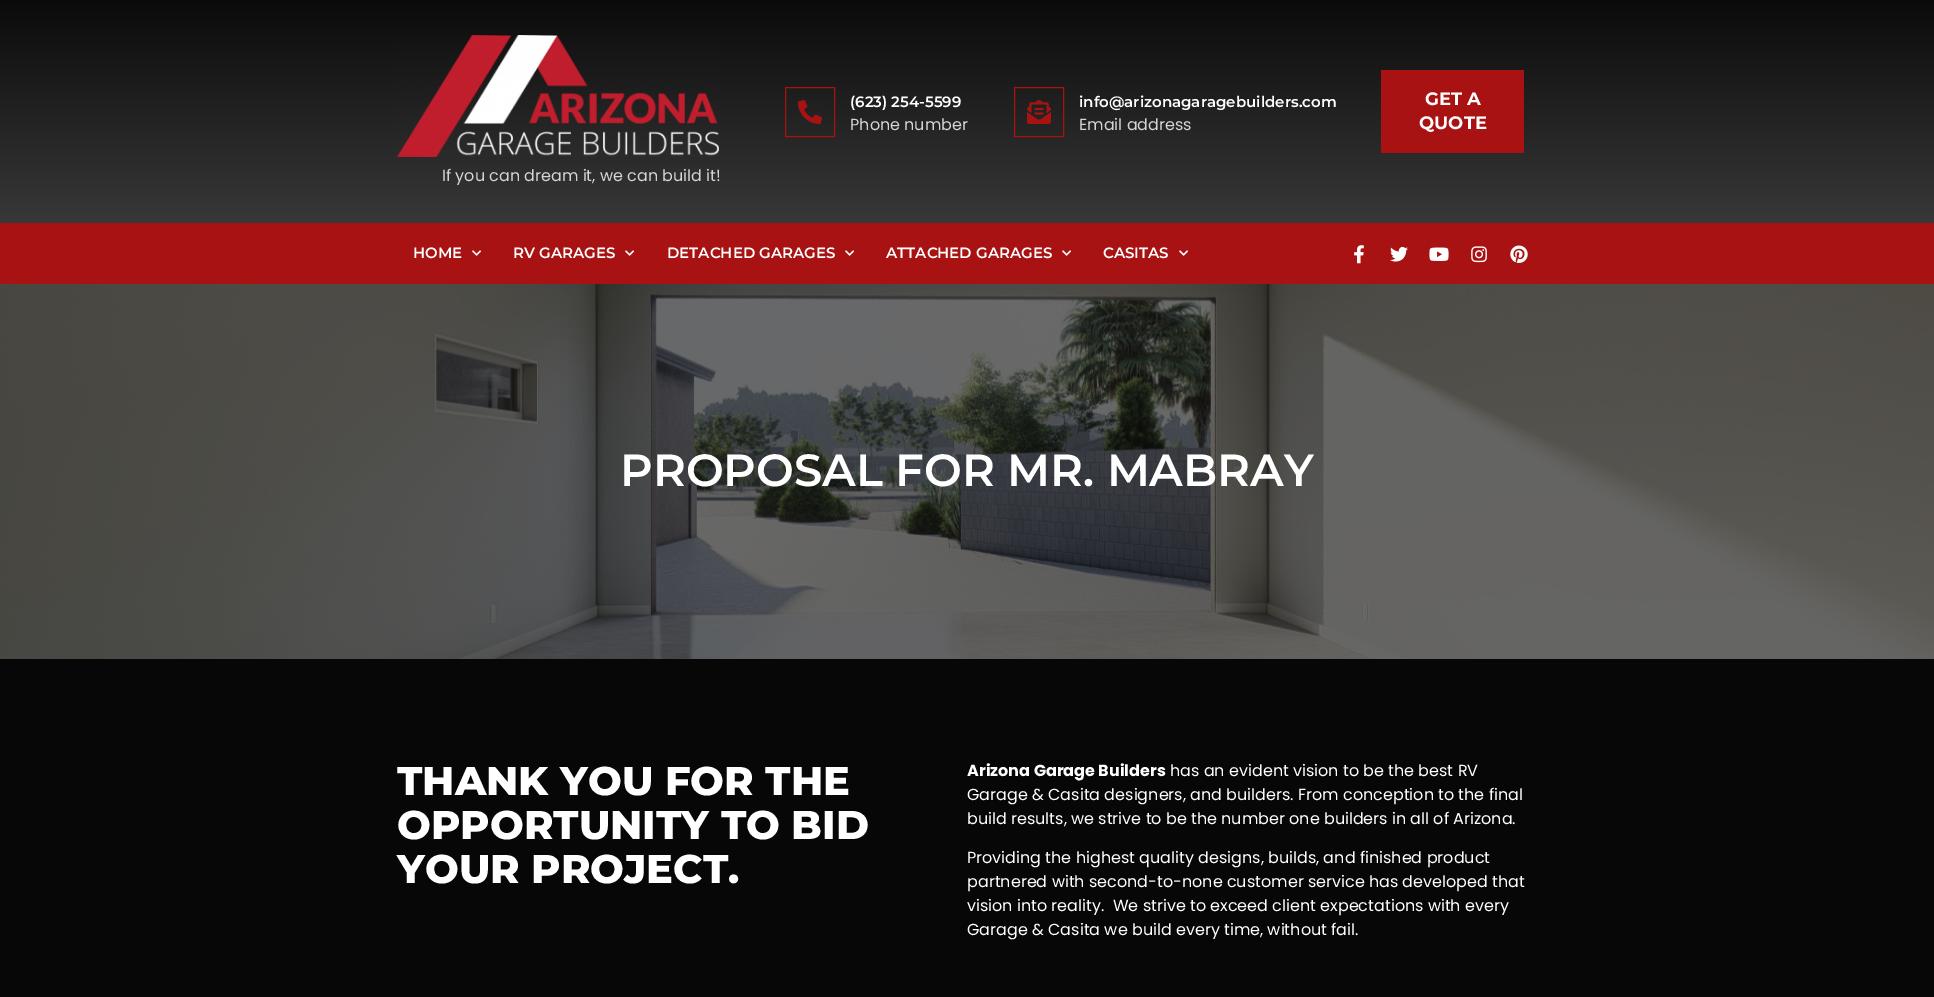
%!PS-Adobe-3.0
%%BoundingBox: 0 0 1934 997
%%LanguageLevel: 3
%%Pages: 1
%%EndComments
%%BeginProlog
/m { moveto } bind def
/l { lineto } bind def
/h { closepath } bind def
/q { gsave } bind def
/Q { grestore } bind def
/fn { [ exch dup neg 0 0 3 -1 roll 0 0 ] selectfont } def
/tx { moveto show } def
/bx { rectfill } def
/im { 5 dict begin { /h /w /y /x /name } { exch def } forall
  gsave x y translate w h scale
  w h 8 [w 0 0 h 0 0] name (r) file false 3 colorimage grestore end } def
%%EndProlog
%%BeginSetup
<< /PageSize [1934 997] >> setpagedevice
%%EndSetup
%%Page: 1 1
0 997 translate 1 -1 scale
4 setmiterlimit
1 setgray
0 0 1934 997 bx
q 0 0 m 1934 0 l 1934 223 l 0 223 l h clip newpath
<< /ShadingType 2 /ColorSpace /DeviceRGB /Coords [967 0 967 223] /Extend [true true] /Function << /FunctionType 2 /Domain [0 1] /C0 [0.043 0.043 0.043] /C1 [0.22 0.22 0.22] /N 1 >> >> shfill Q
0.659 0.071 0.071 setrgbcolor
785.5 87.5 49 49 rectstroke
(image0.raw) 798 100 24 24 im
/Montserrat-SemiBold 15 fn
1 setgray
(\(623\) 254-5599) 850 107 tx
/Poppins-Regular 16 fn
0.835 setgray
(Phone number) 850 130 tx
0.659 0.071 0.071 setrgbcolor
1014.5 87.5 49 49 rectstroke
(image1.raw) 1027 100 24 24 im
/Montserrat-SemiBold 15 fn
1 setgray
(info@arizonagaragebuilders.com) 1079 107 tx
/Poppins-Regular 16 fn
0.835 setgray
(Email address) 1079 130 tx
0.659 0.071 0.071 setrgbcolor
1381 70 143 83 bx
/Montserrat-Bold 18 fn
1 setgray
(GET A) 1425 105 tx
(QUOTE) 1419 129 tx
(image2.raw) 397 35 322 122 im
/Poppins-Regular 16 fn
0.835 setgray
(If you can dream it, we can build it!) 442 181 tx
0.659 0.071 0.071 setrgbcolor
0 223 1934 61 bx
/Montserrat-SemiBold 15 fn
1 setgray
(HOME) 413 258 tx
(image3.raw) 472 250 9 6 im
(RV GARAGES) 513 258 tx
(image3.raw) 625 250 9 6 im
(DETACHED GARAGES) 667 258 tx
(image3.raw) 845 250 9 6 im
(ATTACHED GARAGES) 886 258 tx
(image3.raw) 1062 250 9 6 im
(CASITAS) 1103 258 tx
(image3.raw) 1179 250 9 6 im
(image4.raw) 1354 245 10 19 im
(image5.raw) 1390 246 18 16 im
(image6.raw) 1429 247 20 14 im
(image7.raw) 1471 246 16 17 im
(image8.raw) 1510 245 18 18 im
(image9.raw) 0 284 1934 375 im
/Montserrat-SemiBold 45 fn
(PROPOSAL FOR MR. MABRAY) 620 486 tx
0.027 setgray
0 659 1934 338 bx
/Montserrat-ExtraBold 40 fn
1 setgray
(THANK YOU FOR THE) 397 795 tx
(OPPORTUNITY TO BID) 397 839 tx
(YOUR PROJECT.) 397 883 tx
/Poppins-Bold 16 fn
(Arizona Garage Builders) 967 776 tx
/Poppins-Regular 16 fn
(has an evident vision to be the best RV) 1170 776 tx
(Garage & Casita designers, and builders. From conception to the final) 967 800 tx
(build results, we strive to be the number one builders in all of Arizona.) 967 824 tx
(Providing the highest quality designs, builds, and finished product) 967 863 tx
(partnered with second-to-none customer service has developed that) 967 887 tx
(vision into reality.  We strive to exceed client expectations with every) 967 911 tx
(Garage & Casita we build every time, without fail.) 967 935 tx
showpage
%%EOF
